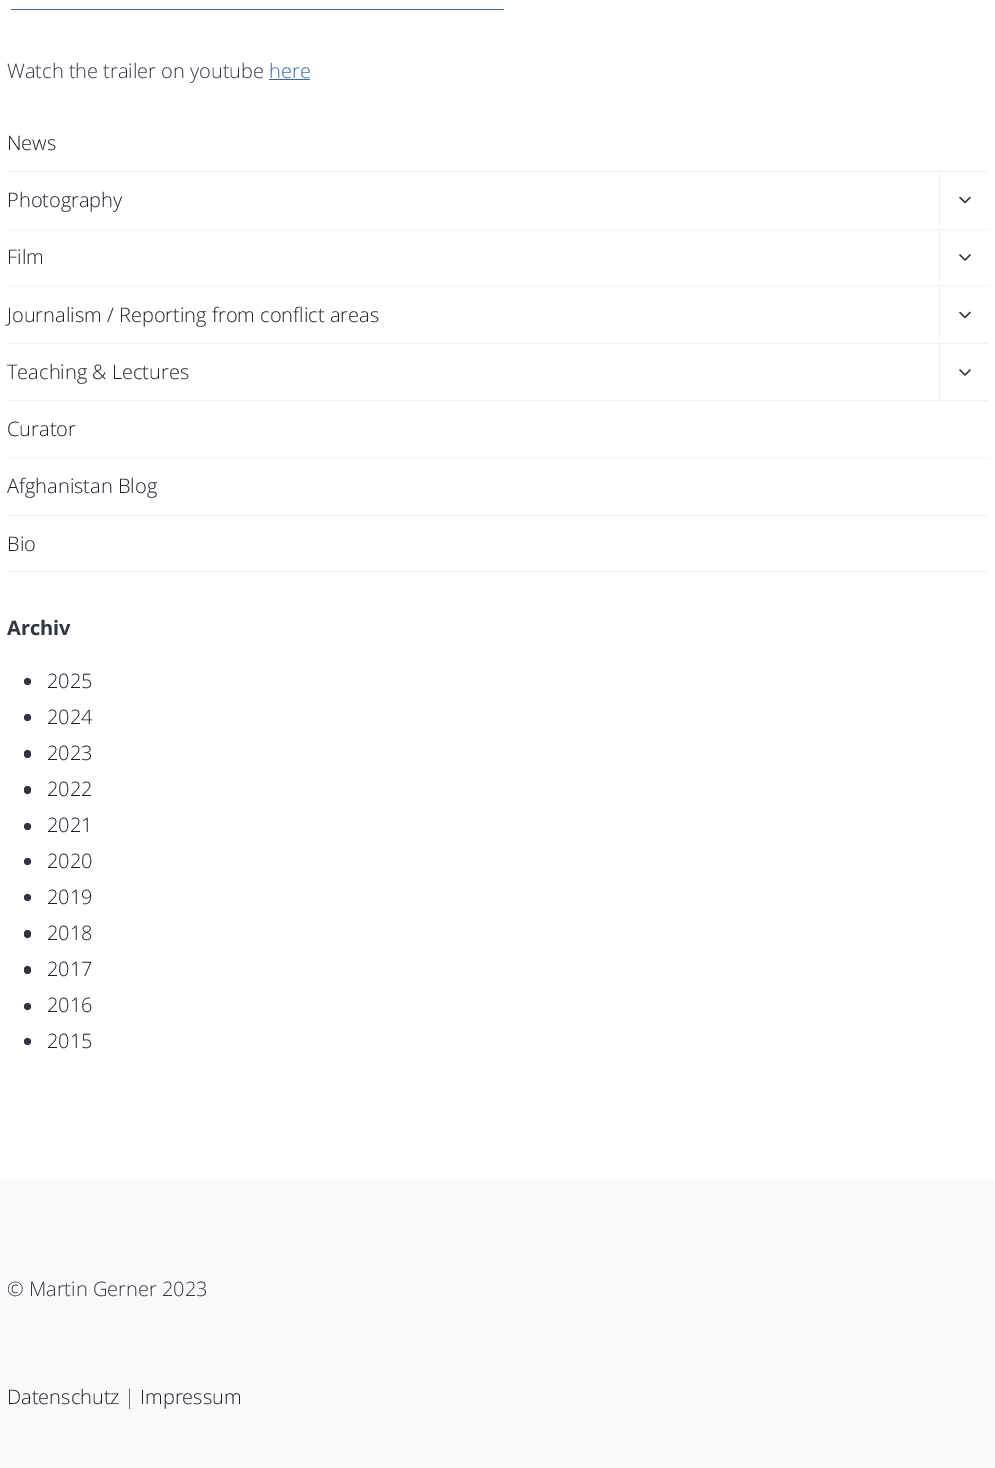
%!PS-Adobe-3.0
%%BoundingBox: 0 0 995 1468
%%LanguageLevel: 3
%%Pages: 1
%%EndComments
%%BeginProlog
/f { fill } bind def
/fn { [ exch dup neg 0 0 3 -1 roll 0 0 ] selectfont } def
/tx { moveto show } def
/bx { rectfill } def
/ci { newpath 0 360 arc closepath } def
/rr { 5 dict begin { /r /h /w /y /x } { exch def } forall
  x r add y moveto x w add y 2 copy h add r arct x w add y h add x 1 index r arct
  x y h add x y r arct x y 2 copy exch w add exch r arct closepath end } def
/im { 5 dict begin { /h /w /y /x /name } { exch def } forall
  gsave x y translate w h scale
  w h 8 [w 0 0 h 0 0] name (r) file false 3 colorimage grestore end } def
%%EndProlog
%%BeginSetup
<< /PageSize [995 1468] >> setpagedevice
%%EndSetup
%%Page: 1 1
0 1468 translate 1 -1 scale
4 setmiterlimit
1 setgray
0 0 995 1468 bx
0.169 0.424 0.69 setrgbcolor
11 9 493 1 bx
/OpenSans-Light 20 fn
0.176 0.216 0.282 setrgbcolor
(Watch the trailer on youtube) 7 78 tx
0.169 0.424 0.69 setrgbcolor
(here) 269 78 tx
269 79 41 1 bx
0.929 0.949 0.969 setrgbcolor
6 171 983 1 bx
0.102 0.125 0.173 setrgbcolor
(News) 7 150 tx
0.929 0.949 0.969 setrgbcolor
6 229 983 1 bx
0.102 0.125 0.173 setrgbcolor
(Photography) 7 207 tx
0.929 0.949 0.969 setrgbcolor
939 173 1 57 bx
(image0.raw) 959 196 12 8 im
6 285 983 1 bx
0.102 0.125 0.173 setrgbcolor
(Film) 7 264 tx
0.929 0.949 0.969 setrgbcolor
939 230 1 56 bx
(image1.raw) 959 254 12 7 im
6 343 983 1 bx
0.102 0.125 0.173 setrgbcolor
(Journalism / Reporting from conflict areas) 7 322 tx
0.929 0.949 0.969 setrgbcolor
939 286 1 58 bx
(image0.raw) 959 311 12 8 im
6 400 983 1 bx
0.102 0.125 0.173 setrgbcolor
(Teaching & Lectures) 7 379 tx
0.929 0.949 0.969 setrgbcolor
939 344 1 57 bx
(image1.raw) 959 369 12 7 im
6 458 983 1 bx
0.102 0.125 0.173 setrgbcolor
(Curator) 7 436 tx
0.929 0.949 0.969 setrgbcolor
6 515 983 1 bx
0.102 0.125 0.173 setrgbcolor
(Afghanistan Blog) 7 493 tx
0.929 0.949 0.969 setrgbcolor
6 571 983 1 bx
0.102 0.125 0.173 setrgbcolor
(Bio) 7 551 tx
/OpenSans-Bold 20 fn
0.176 0.216 0.282 setrgbcolor
(Archiv) 7 635 tx
27.5 681.5 3.5 ci f
/OpenSans-Light 20 fn
0.102 0.125 0.173 setrgbcolor
(2025) 47 688 tx
0.176 0.216 0.282 setrgbcolor
27.5 717.5 3.5 ci f
0.102 0.125 0.173 setrgbcolor
(2024) 47 724 tx
0.176 0.216 0.282 setrgbcolor
24 750 7 8 3.5 rr f
0.102 0.125 0.173 setrgbcolor
(2023) 47 760 tx
0.176 0.216 0.282 setrgbcolor
24 786 7 8 3.5 rr f
0.102 0.125 0.173 setrgbcolor
(2022) 47 796 tx
0.176 0.216 0.282 setrgbcolor
27.5 826.5 3.5 ci f
0.102 0.125 0.173 setrgbcolor
(2021) 47 832 tx
0.176 0.216 0.282 setrgbcolor
27.5 861.5 3.5 ci f
0.102 0.125 0.173 setrgbcolor
(2020) 47 868 tx
0.176 0.216 0.282 setrgbcolor
27.5 897.5 3.5 ci f
0.102 0.125 0.173 setrgbcolor
(2019) 47 904 tx
0.176 0.216 0.282 setrgbcolor
24 930 7 8 3.5 rr f
0.102 0.125 0.173 setrgbcolor
(2018) 47 940 tx
0.176 0.216 0.282 setrgbcolor
24 966 7 8 3.5 rr f
0.102 0.125 0.173 setrgbcolor
(2017) 47 976 tx
0.176 0.216 0.282 setrgbcolor
27.5 1006.5 3.5 ci f
0.102 0.125 0.173 setrgbcolor
(2016) 47 1012 tx
0.176 0.216 0.282 setrgbcolor
27.5 1041.5 3.5 ci f
0.102 0.125 0.173 setrgbcolor
(2015) 47 1048 tx
0.976 setgray
0 1179 995 289 bx
0.176 0.216 0.282 setrgbcolor
(© Martin Gerner 2023) 7 1296 tx
0.102 0.125 0.173 setrgbcolor
(Datenschutz) 7 1404 tx
0.176 0.216 0.282 setrgbcolor
(|) 124 1404 tx
0.102 0.125 0.173 setrgbcolor
(Impressum) 140 1404 tx
showpage
%%EOF
